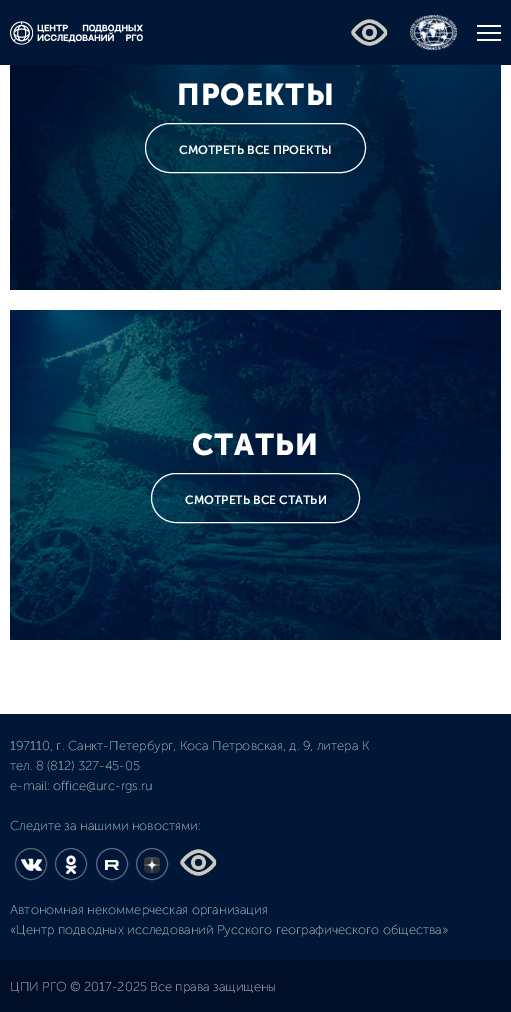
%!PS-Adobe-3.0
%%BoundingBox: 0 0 511 1012
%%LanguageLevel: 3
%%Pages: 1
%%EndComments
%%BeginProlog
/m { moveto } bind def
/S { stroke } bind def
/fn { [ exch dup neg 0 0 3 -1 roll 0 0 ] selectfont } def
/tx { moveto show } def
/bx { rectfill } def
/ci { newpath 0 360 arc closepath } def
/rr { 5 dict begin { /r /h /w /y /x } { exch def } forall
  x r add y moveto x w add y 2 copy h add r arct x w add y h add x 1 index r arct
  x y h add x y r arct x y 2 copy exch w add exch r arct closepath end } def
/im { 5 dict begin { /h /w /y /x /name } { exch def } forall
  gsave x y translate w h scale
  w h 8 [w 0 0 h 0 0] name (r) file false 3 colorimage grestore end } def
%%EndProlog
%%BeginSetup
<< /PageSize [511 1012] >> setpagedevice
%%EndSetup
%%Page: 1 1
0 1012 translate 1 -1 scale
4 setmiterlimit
1 setgray
0 0 511 1012 bx
0 0.09 0.22 setrgbcolor
0 0 511 65 bx
(image0.raw) 10 21 133 24 im
(image1.raw) 351 19 37 27 im
(image2.raw) 410 15 47 35 im
1 setgray
477 25 24 2 bx
477 39 24 2 bx
477 32 24 2 bx
(image3.raw) 10 65 491 225 im
/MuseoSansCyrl-Bold 30 fn
177 105 m 1 0 (ПРОЕКТЫ) ashow
145.5 123.5 220 49 24.5 rr S
/MuseoSansCyrl-SemiBold 12 fn
(СМОТРЕТЬ ВСЕ ПРОЕКТЫ) 179 154 tx
(image4.raw) 10 310 491 330 im
/MuseoSansCyrl-Bold 30 fn
192 455 m 1 0 (СТАТЬИ) ashow
151.5 473.5 208 49 24.5 rr S
/MuseoSansCyrl-SemiBold 12 fn
(СМОТРЕТЬ ВСЕ СТАТЬИ) 185 504 tx
0 0.09 0.22 setrgbcolor
0 714 511 246 bx
/MuseoSansCyrl-ExtraLight 13 fn
0.714 0.737 0.769 setrgbcolor
(197110, г. Санкт-Петербург, Коса Петровская, д. 9, литера К) 10 750 tx
(тел. 8 \(812\) 327-45-05) 10 770 tx
(e-mail: office@urc-rgs.ru) 10 790 tx
(Следите за нашими новостями:) 10 830 tx
0.349 0.408 0.494 setrgbcolor
31 864 15.5 ci S
(image5.raw) 21 858 21 13 im
71 864 15.5 ci S
(image6.raw) 65 855 12 19 im
112 864 15.5 ci S
(image7.raw) 105 860 14 10 im
152 864 15.5 ci S
(image8.raw) 144 857 16 16 im
(image1.raw) 180 849 37 27 im
0.714 0.737 0.769 setrgbcolor
(Автономная некоммерческая организация) 10 914 tx
(«Центр подводных исследований Русского географического общества») 10 934 tx
0 0.055 0.153 setrgbcolor
0 960 511 52 bx
0.714 0.737 0.769 setrgbcolor
(ЦПИ РГО © 2017-2025 Все права защищены) 10 991 tx
showpage
%%EOF
